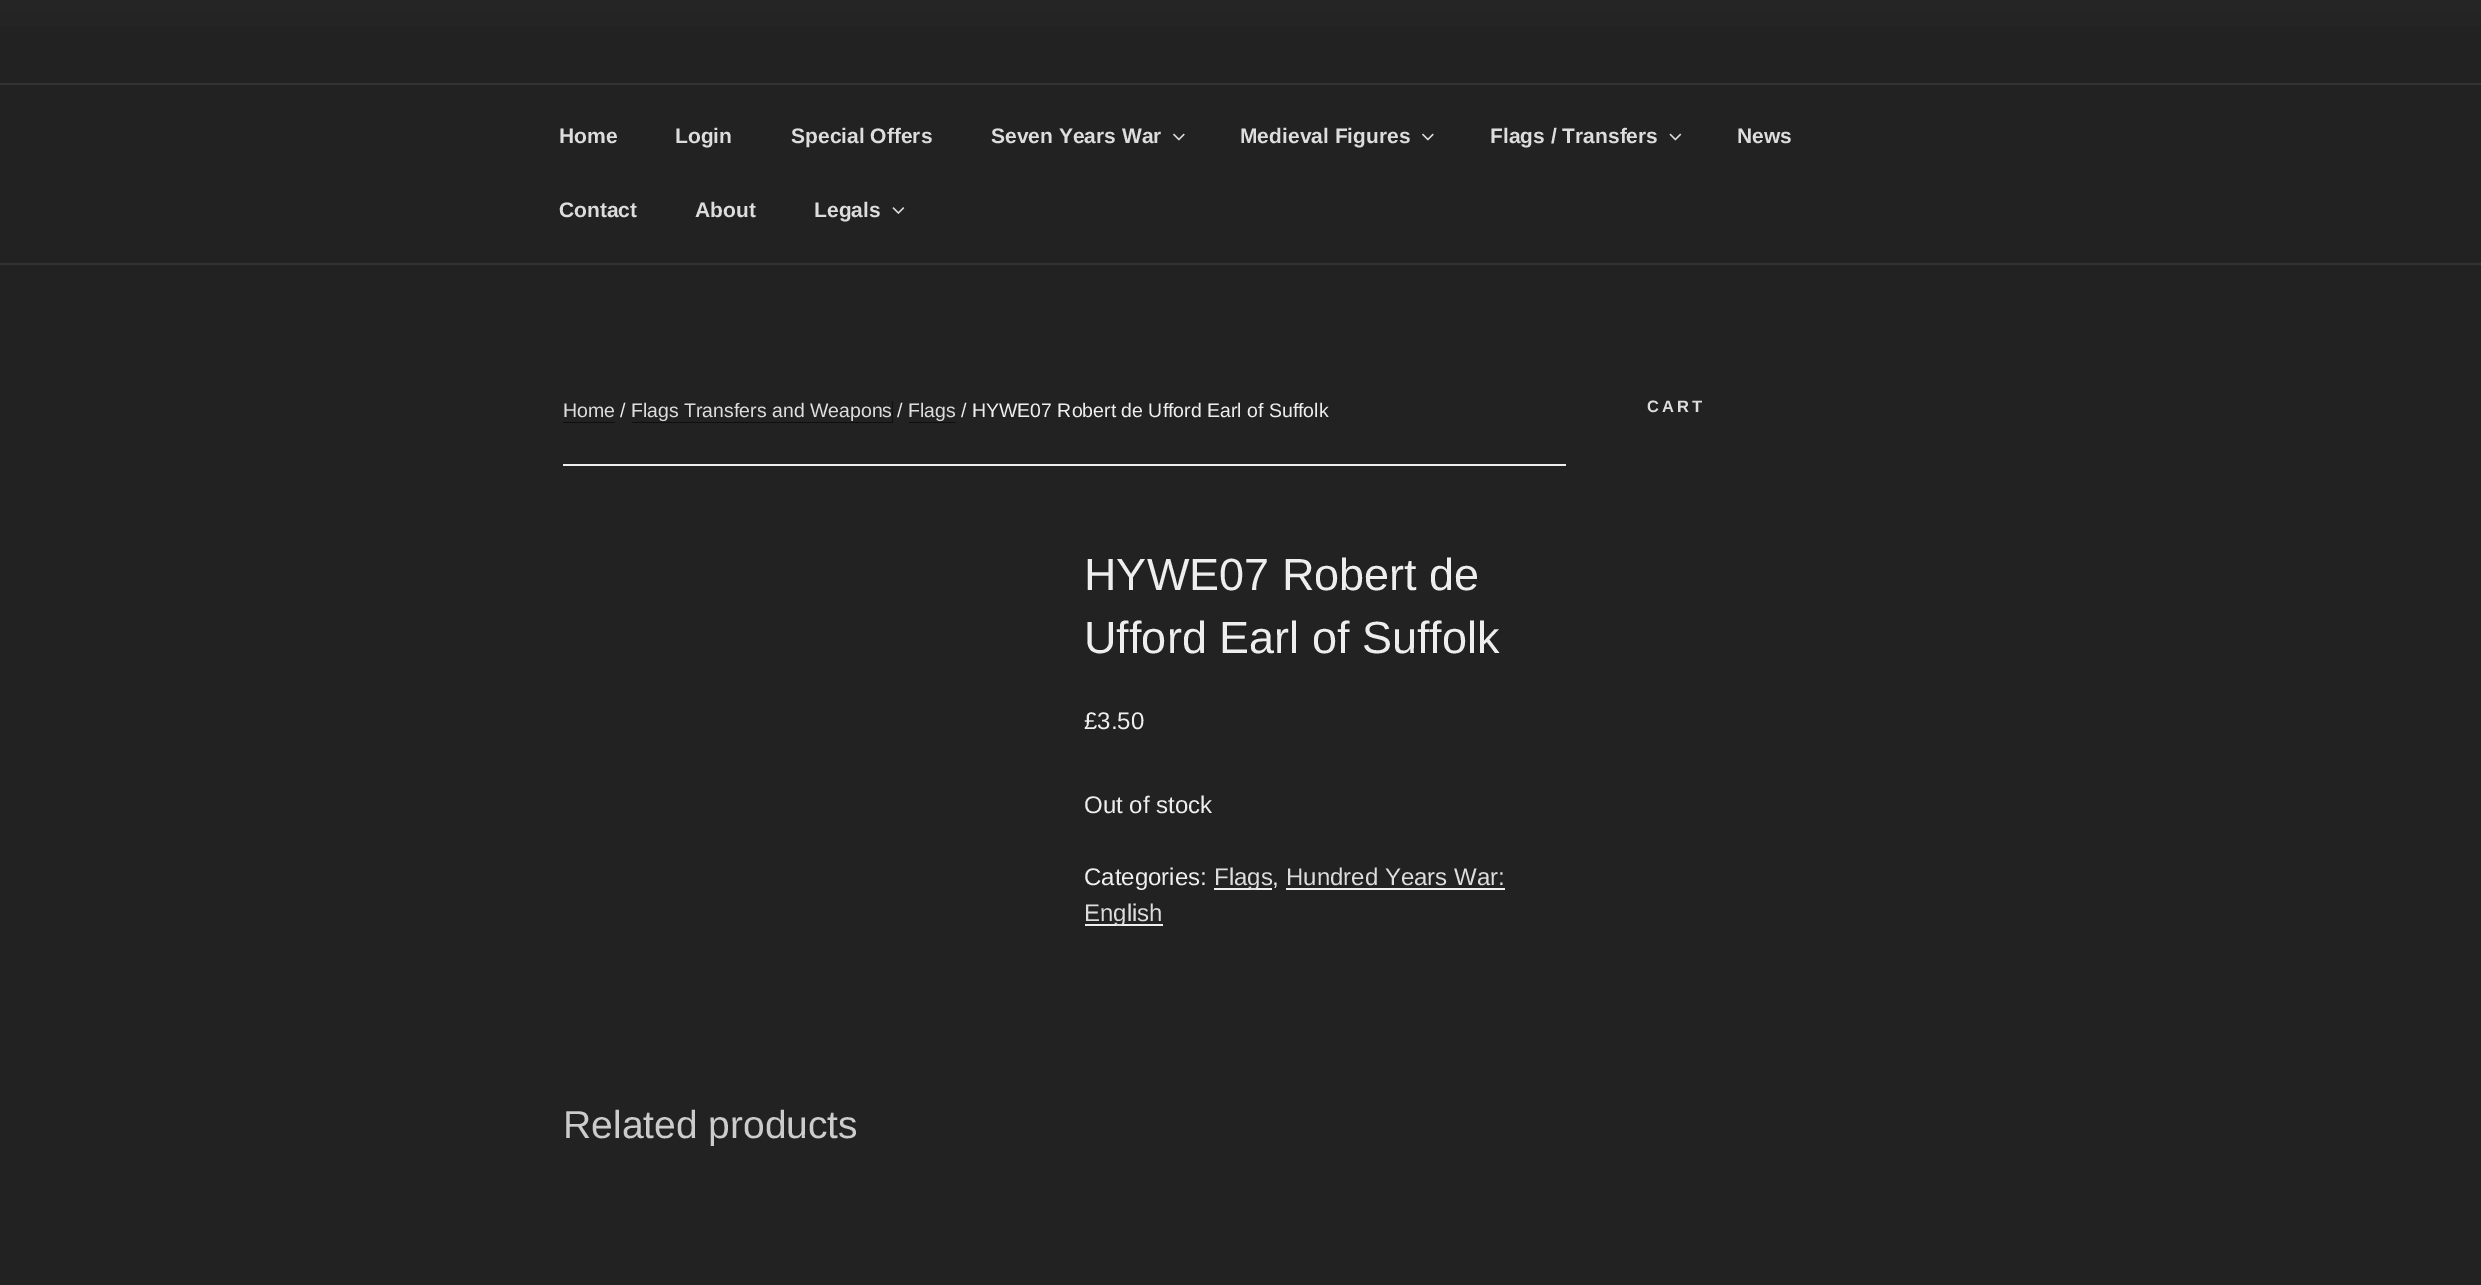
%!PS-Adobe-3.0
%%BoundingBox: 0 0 2481 1285
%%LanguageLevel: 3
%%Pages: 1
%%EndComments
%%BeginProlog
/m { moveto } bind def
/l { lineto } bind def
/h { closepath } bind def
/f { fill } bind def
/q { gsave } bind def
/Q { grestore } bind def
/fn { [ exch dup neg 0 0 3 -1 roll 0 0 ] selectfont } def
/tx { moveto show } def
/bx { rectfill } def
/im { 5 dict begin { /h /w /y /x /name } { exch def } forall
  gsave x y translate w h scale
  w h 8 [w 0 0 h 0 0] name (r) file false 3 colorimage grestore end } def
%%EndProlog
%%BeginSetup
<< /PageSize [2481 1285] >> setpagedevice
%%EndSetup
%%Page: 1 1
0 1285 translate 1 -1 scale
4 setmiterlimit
0.133 setgray
0 0 2481 1285 bx
q 0 0 m 2481 0 l 2481 27 l 0 27 l h clip newpath
<< /ShadingType 2 /ColorSpace /DeviceRGB /Coords [1241 0 1241 264] /Extend [true true] /Function << /FunctionType 3 /Domain [0 1] /Functions [<< /FunctionType 2 /Domain [0 1] /C0 [0.149 0.149 0.149] /C1 [0.106 0.106 0.106] /N 1 >> << /FunctionType 2 /Domain [0 1] /C0 [0.106 0.106 0.106] /C1 [0.106 0.106 0.106] /N 1 >>] /Bounds [0.75] /Encode [0 1 0 1] >> >> shfill Q
0.2 setgray
0 83 2481 2 bx
0 263 2481 2 bx
/LiberationSans-Bold 21 fn
0.867 setgray
(Home) 559 143 tx
(Login) 675 143 tx
(Special Offers) 791 143 tx
(Seven Years War) 991 143 tx
(image0.raw) 1173 133 12 8 im
(Medieval Figures) 1240 143 tx
(image0.raw) 1422 133 12 8 im
(Flags / Transfers) 1490 143 tx
(image1.raw) 1669 133 13 8 im
(News) 1737 143 tx
(Contact) 559 217 tx
(About) 695 217 tx
(Legals) 814 217 tx
(image2.raw) 892 207 13 7 im
0.933 setgray
563 464 1003 2 bx
/LiberationSans-Regular 19.5 fn
0.867 setgray
(Home) 563 417 tx
0.059 setgray
563 422 52 1 bx
0.933 setgray
(/) 620 417 tx
0.059 setgray
632 422 m 632 423 l 893 423 l 893 401 l 892 401 l 892 422 l h f
0.867 setgray
(Flags Transfers and Weapons) 631 417 tx
0.933 setgray
(/) 897 417 tx
0.867 setgray
(Flags) 908 417 tx
0.059 setgray
909 422 m 909 423 l 956 423 l 956 401 l 956 422 l h f
0.933 setgray
(/ HYWE07 Robert de Ufford Earl of Suffolk) 961 417 tx
/LiberationSans-Regular 45 fn
(HYWE07 Robert de) 1084 590 tx
(Ufford Earl of Suffolk) 1084 653 tx
/LiberationSans-Regular 24 fn
(£3.50) 1084 729 tx
(Out of stock) 1084 813 tx
(Categories:) 1084 885 tx
0.941 setgray
1214 888 58 2 bx
0.867 setgray
(Flags) 1214 885 tx
0.933 setgray
(,) 1272 885 tx
0.941 setgray
1286 888 219 2 bx
0.867 setgray
(Hundred Years War:) 1286 885 tx
0.941 setgray
1085 924 78 2 bx
0.867 setgray
(English) 1084 921 tx
/LiberationSans-Regular 39 fn
0.8 setgray
(Related products) 563 1138 tx
/LiberationSans-Bold 16.5 fn
0.867 setgray
1647 412 m 3 0 (CART) ashow
showpage
%%EOF
